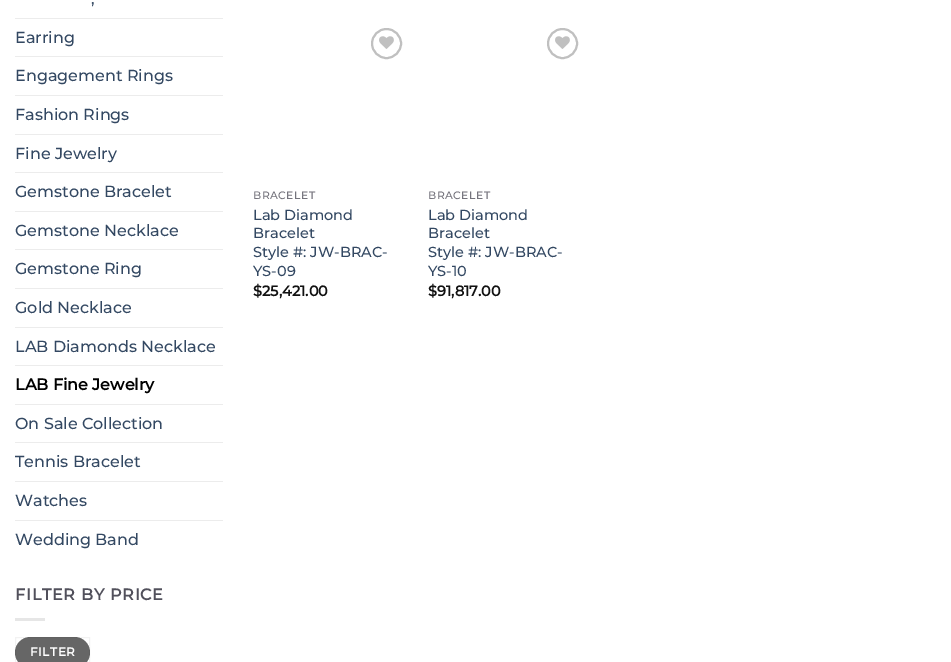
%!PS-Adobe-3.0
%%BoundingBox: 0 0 951 662
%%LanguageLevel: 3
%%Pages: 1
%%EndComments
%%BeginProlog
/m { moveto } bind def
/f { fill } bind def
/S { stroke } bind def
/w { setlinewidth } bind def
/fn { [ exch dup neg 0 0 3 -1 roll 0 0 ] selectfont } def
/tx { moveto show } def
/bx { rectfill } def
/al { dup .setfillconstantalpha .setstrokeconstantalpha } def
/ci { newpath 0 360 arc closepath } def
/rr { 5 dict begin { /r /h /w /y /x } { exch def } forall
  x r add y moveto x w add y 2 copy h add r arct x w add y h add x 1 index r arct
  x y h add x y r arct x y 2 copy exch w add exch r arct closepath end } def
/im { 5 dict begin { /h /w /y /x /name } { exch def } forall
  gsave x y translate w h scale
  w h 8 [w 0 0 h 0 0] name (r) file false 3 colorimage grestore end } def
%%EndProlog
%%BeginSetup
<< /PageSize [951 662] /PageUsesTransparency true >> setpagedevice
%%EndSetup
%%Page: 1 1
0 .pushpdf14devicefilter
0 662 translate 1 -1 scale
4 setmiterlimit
1 setgray
0 0 951 662 bx
/Montserrat-Medium 16 fn
0.2 0.282 0.384 setrgbcolor
(,) 91 4 tx
0.925 setgray
15 18 208 1 bx
0.2 0.282 0.384 setrgbcolor
(Earring) 15 43 tx
0.925 setgray
15 56 208 1 bx
0.2 0.282 0.384 setrgbcolor
(Engagement Rings) 15 81 tx
0.925 setgray
15 95 208 1 bx
0.2 0.282 0.384 setrgbcolor
(Fashion Rings) 15 120 tx
0.925 setgray
15 134 208 1 bx
0.2 0.282 0.384 setrgbcolor
(Fine Jewelry) 15 159 tx
0.925 setgray
15 172 208 1 bx
0.2 0.282 0.384 setrgbcolor
(Gemstone Bracelet) 15 197 tx
0.925 setgray
15 211 208 1 bx
0.2 0.282 0.384 setrgbcolor
(Gemstone Necklace) 15 236 tx
0.925 setgray
15 249 208 1 bx
0.2 0.282 0.384 setrgbcolor
(Gemstone Ring) 15 274 tx
0.925 setgray
15 288 208 1 bx
0.2 0.282 0.384 setrgbcolor
(Gold Necklace) 15 313 tx
0.925 setgray
15 327 208 1 bx
0.2 0.282 0.384 setrgbcolor
(LAB Diamonds Necklace) 15 352 tx
0.925 setgray
15 365 208 1 bx
/Montserrat-Bold 16 fn
0 setgray
(LAB Fine Jewelry) 15 390 tx
0.925 setgray
15 404 208 1 bx
/Montserrat-Medium 16 fn
0.2 0.282 0.384 setrgbcolor
(On Sale Collection) 15 429 tx
0.925 setgray
15 442 208 1 bx
0.2 0.282 0.384 setrgbcolor
(Tennis Bracelet) 15 467 tx
0.925 setgray
15 481 208 1 bx
0.2 0.282 0.384 setrgbcolor
(Watches) 15 506 tx
0.925 setgray
15 520 208 1 bx
0.2 0.282 0.384 setrgbcolor
(Wedding Band) 15 545 tx
/Montserrat-Bold 16 fn
0.318 0.314 0.357 setrgbcolor
15 600 m 0.75 0 (FILTER BY PRICE) ashow
0.902 setgray
15 618 30 3 bx
0.4 setgray
15 637 75 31 15.5 rr f
0.05 al
0 setgray
15.5 637.5 74 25 rectstroke
/Montserrat-Bold 12 fn
1 al
1 setgray
30 656 m 0.5 0 (FILTER) ashow
0.753 setgray
2 w
386.5 43.5 14.5 ci S
(image0.raw) 379 36 15 13 im
/Montserrat-Medium 10.75 fn
0.455 0.451 0.486 setrgbcolor
253 199 m 0.5 0 (BRACELET) ashow
/Montserrat-Medium 14.5 fn
0.2 0.282 0.384 setrgbcolor
(Lab Diamond) 253 220 tx
(Bracelet) 253 238 tx
(Style #: JW-BRAC-) 253 257 tx
(YS-09) 253 276 tx
/Montserrat-Bold 14.5 fn
0.067 setgray
($25,421.00) 253 296 tx
0.753 setgray
562.5 43.5 14.5 ci S
(image0.raw) 555 36 15 13 im
/Montserrat-Medium 10.75 fn
0.455 0.451 0.486 setrgbcolor
428 199 m 0.5 0 (BRACELET) ashow
/Montserrat-Medium 14.5 fn
0.2 0.282 0.384 setrgbcolor
(Lab Diamond) 428 220 tx
(Bracelet) 428 238 tx
(Style #: JW-BRAC-) 428 257 tx
(YS-10) 428 276 tx
/Montserrat-Bold 14.5 fn
0.067 setgray
($91,817.00) 428 296 tx
.poppdf14devicefilter showpage
%%EOF
